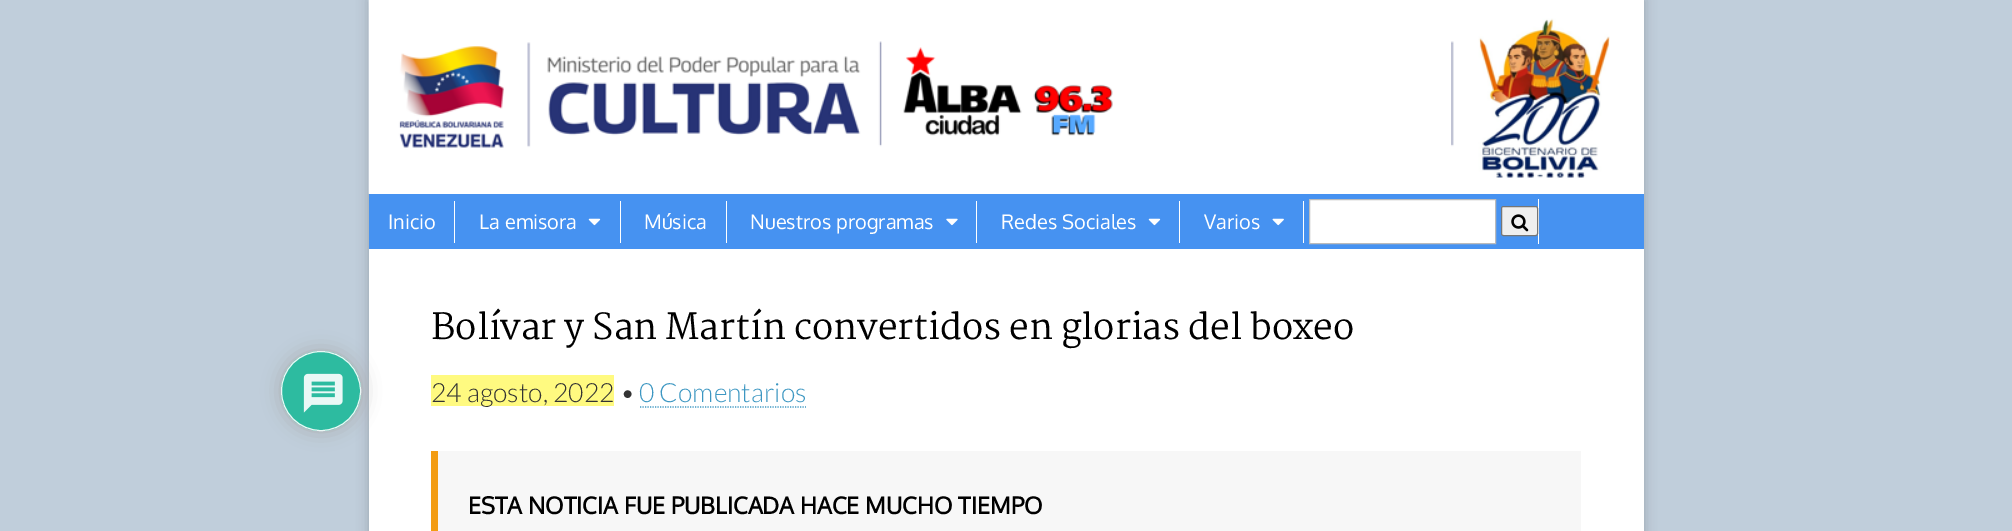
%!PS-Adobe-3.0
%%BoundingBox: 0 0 2012 531
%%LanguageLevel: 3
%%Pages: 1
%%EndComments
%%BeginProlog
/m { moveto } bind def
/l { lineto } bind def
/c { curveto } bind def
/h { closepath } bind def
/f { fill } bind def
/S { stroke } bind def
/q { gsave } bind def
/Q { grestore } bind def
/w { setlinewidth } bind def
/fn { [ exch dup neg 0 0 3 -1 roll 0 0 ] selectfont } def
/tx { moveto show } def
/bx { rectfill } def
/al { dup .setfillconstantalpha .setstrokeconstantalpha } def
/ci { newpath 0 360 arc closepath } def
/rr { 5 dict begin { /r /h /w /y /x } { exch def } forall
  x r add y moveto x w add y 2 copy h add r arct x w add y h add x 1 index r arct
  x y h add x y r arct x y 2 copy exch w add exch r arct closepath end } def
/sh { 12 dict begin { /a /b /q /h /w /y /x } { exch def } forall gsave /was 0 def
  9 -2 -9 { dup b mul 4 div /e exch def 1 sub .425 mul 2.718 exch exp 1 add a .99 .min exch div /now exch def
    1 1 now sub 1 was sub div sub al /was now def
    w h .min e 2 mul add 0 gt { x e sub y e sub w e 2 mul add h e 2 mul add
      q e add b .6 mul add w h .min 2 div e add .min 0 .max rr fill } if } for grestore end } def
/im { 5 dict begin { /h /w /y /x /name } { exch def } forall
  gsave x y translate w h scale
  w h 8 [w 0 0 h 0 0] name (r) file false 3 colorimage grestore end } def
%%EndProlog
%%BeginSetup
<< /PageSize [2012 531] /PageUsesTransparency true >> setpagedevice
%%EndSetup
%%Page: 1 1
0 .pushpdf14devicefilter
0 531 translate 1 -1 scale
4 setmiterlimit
0.753 0.808 0.859 setrgbcolor
0 0 2012 531 bx
0 setgray
369 0 1275 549 0 6 0.2 sh
1 setgray
369 0 1275 531 bx
q
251 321 m 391 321 l 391 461 l 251 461 l h 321 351 m 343 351 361 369 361 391 c 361 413 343 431 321 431 c 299 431 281 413 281 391 c 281 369 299 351 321 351 c h eoclip newpath
0.667 setgray
281 351 80 80 40 9.5 0.9 sh
Q
0.9 al
0.114 0.725 0.604 setrgbcolor
321 391 40 ci f
1 setgray
321 391 39.5 ci S
1 al
(image0.raw) 303 373 40 40 im
(image1.raw) 368 0 1242 194 im
0.275 0.573 0.945 setrgbcolor
369 194 1275 55 bx
1 setgray
454 201 1 42 bx
/Oxygen-Regular 20 fn
(Inicio) 388 229 tx
620 201 1 42 bx
(La emisora) 479 229 tx
(image2.raw) 588 218 13 8 im
726 201 1 42 bx
(Música) 644 229 tx
976 201 1 42 bx
(Nuestros programas) 750 229 tx
(image3.raw) 946 218 12 8 im
1179 201 1 42 bx
(Redes Sociales) 1001 229 tx
(image2.raw) 1148 218 13 8 im
1303 201 1 42 bx
(Varios) 1204 229 tx
(image4.raw) 1272 218 12 8 im
1538 199 1 45 bx
1309.5 199.5 m 1495.5 199.5 l 1495.5 243.5 l 1309.5 243.5 l h q f Q
0.733 setgray
S
0.937 setgray
1501.5 206.5 36 29 2 rr q f Q
0.463 setgray
S
(image5.raw) 1511 214 18 18 im
/Martel-Regular 35.2 fn
0 setgray
(Bolívar y San Martín convertidos en glorias del boxeo) 431 339 tx
1 0.98 0.502 setrgbcolor
431 375 183 31 bx
/Lato-Light 26.5 fn
0.2 setgray
(24 agosto, 2022 •) 431 402 tx
0.239 0.592 0.761 setrgbcolor
(0 Comentarios) 639 402 tx
1.2 w
[1.25 1.25] 0 setdash
640 407 m 806 407 l S
0.969 setgray
438 451 1143 80 bx
0.953 0.612 0.071 setrgbcolor
431 451 7 80 bx
/Oxygen-Bold 23.3 fn
0 setgray
(ESTA NOTICIA FUE PUBLICADA HACE MUCHO TIEMPO) 468 514 tx
.poppdf14devicefilter showpage
%%EOF
